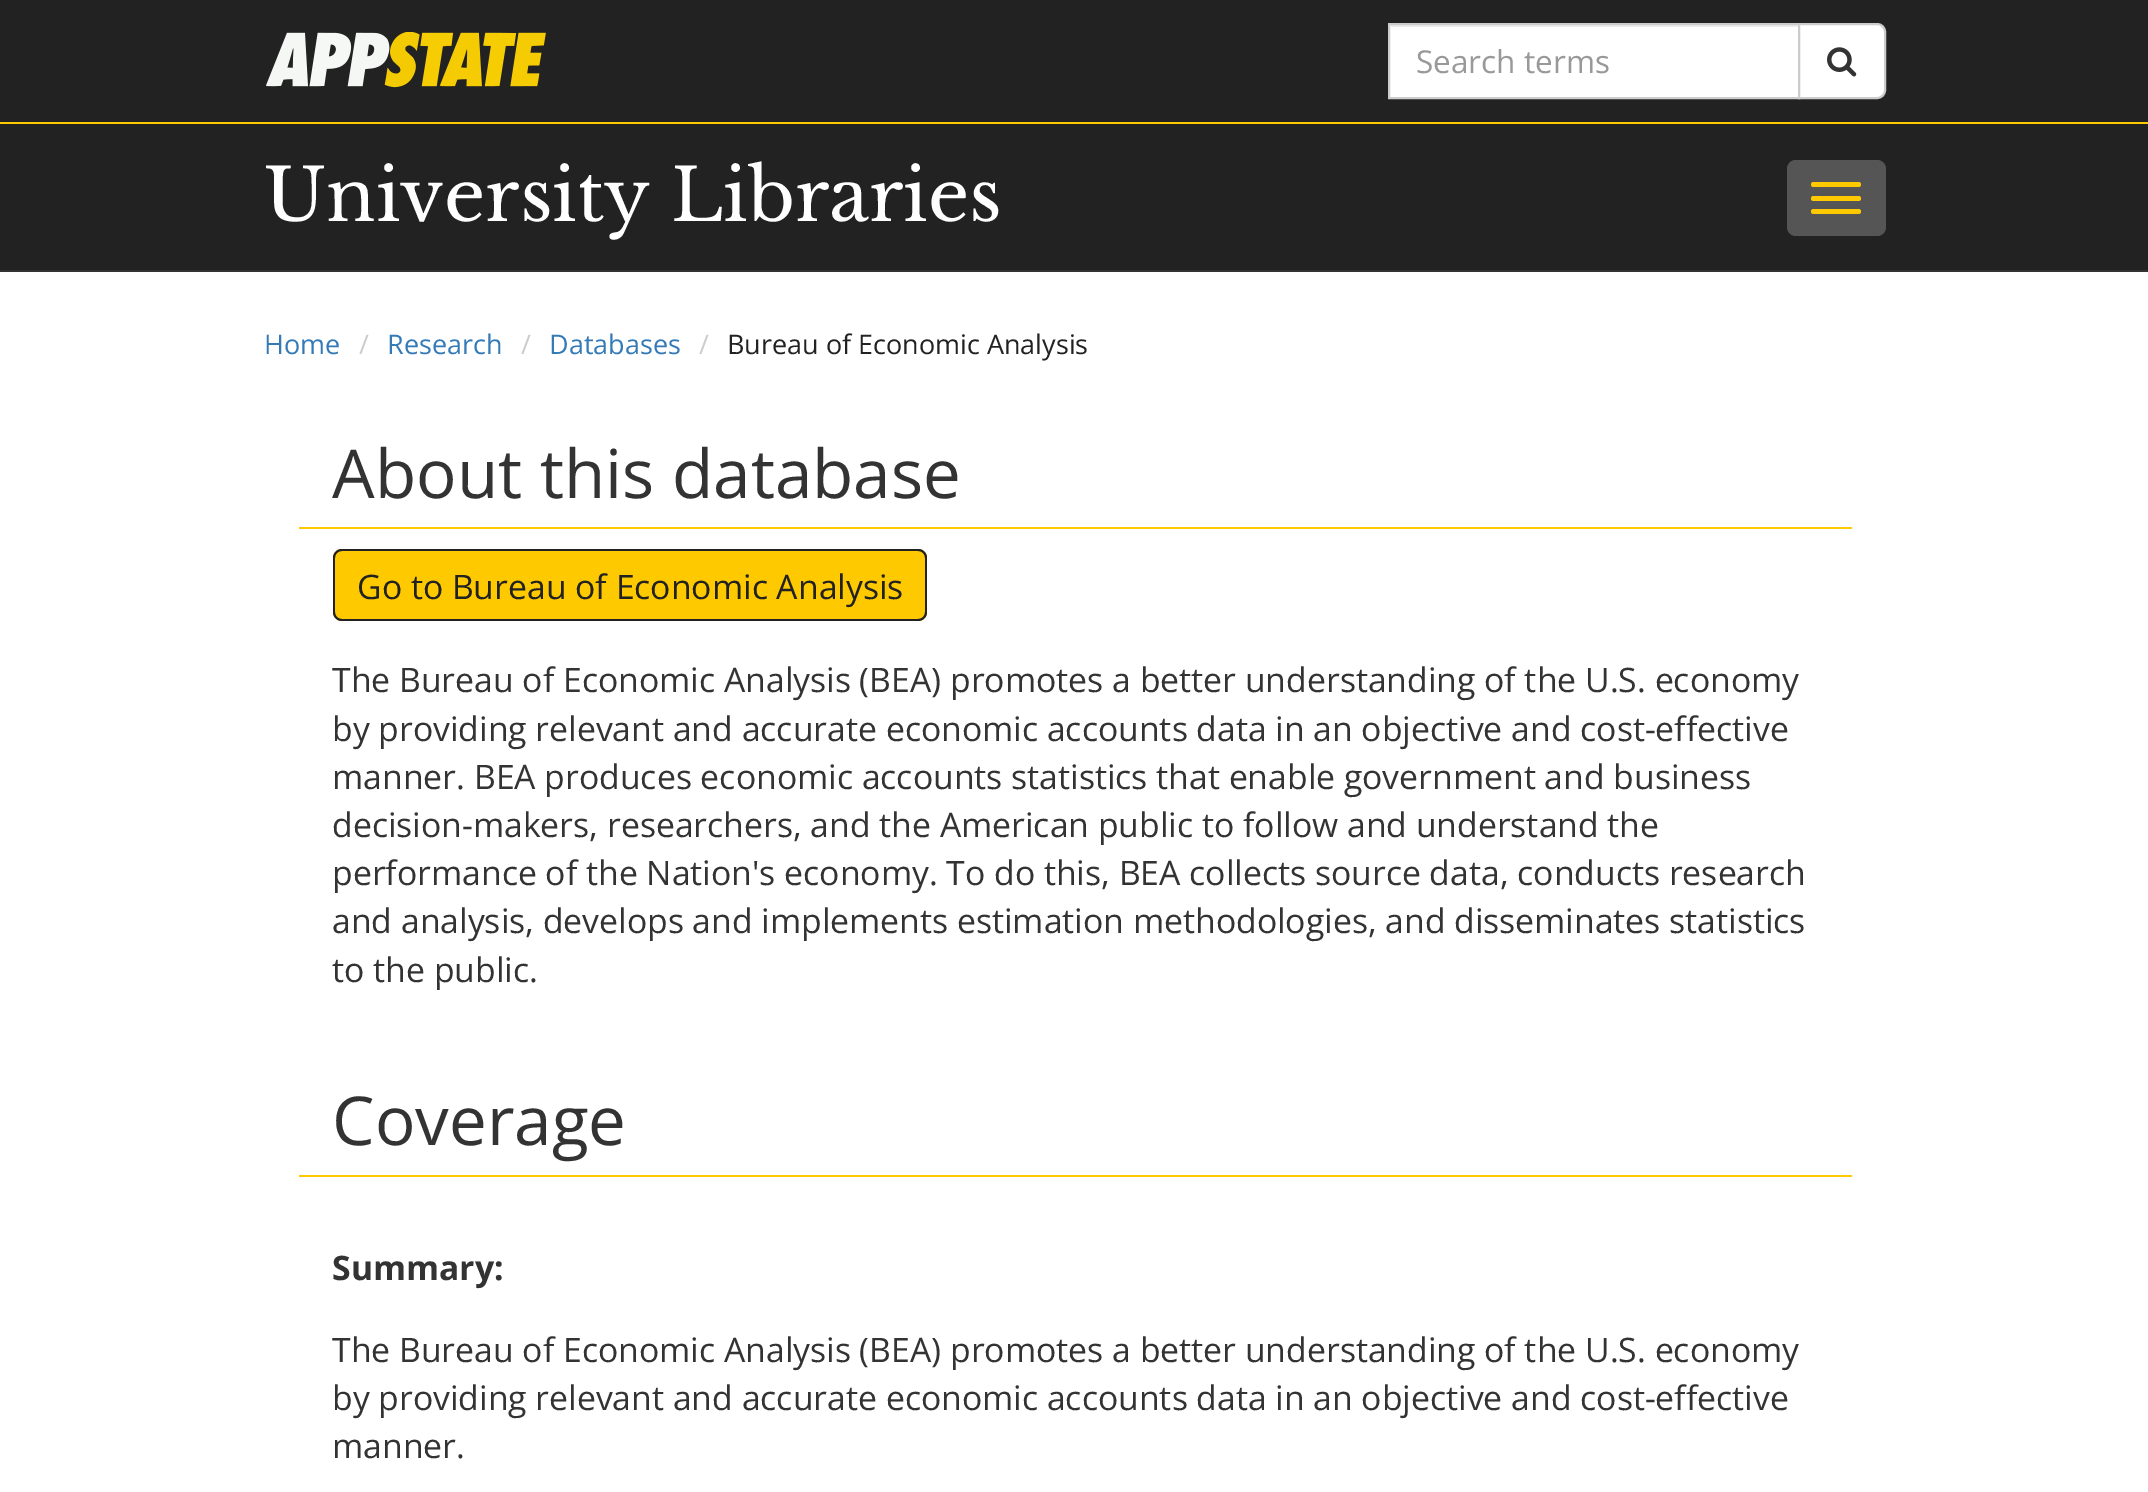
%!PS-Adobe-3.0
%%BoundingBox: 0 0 2148 1492
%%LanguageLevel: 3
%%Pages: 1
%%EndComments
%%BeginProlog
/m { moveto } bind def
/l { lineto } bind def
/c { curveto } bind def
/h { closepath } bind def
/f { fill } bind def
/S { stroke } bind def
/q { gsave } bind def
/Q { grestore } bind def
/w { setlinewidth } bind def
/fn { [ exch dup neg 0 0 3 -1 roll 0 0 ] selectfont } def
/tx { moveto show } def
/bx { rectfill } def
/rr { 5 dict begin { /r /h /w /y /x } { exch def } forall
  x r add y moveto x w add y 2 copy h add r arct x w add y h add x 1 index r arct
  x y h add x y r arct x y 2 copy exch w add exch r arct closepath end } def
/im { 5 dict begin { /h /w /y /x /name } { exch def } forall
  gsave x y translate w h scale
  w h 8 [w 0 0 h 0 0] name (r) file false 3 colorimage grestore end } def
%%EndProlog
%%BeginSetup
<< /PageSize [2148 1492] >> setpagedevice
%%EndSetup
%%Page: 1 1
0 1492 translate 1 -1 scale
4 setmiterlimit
0.2 setgray
0 0 2148 1492 bx
0.133 setgray
0 0 2148 122 bx
1 0.788 0 setrgbcolor
0 122 2148 2 bx
(image0.raw) 266 32 280 56 im
1 setgray
1390 25 408 72 bx
0.925 setgray
1391 25 407 2 bx
0.8 setgray
2 w
1389 24 410 74 rectstroke
/OpenSans-Regular 31.5 fn
0.6 setgray
(Search terms) 1416 73 tx
1 setgray
1799 24 m 1877 24 l 1881.5 24 1885 27.5 1885 32 c 1885 90 l 1885 94.5 1881.5 98 1877 98 c 1799 98 l h q f Q
0.8 setgray
S
(image1.raw) 1827 47 30 30 im
0.133 setgray
0 124 2148 146 bx
/LibreBaskerville-Regular 72 fn
1 setgray
(University Libraries) 264 221 tx
0.333 setgray
1787 160 99 76 9 rr f
1 0.788 0 setrgbcolor
1811 182 50 5 2.5 rr f
1811 196 50 5 2.5 rr f
1811 209 50 5 2.5 rr f
1 setgray
0 272 2148 1220 bx
/OpenSans-Regular 27 fn
0.204 0.478 0.718 setrgbcolor
(Home) 264 354 tx
0.8 setgray
(/) 359 354 tx
0.204 0.478 0.718 setrgbcolor
(Research) 387 354 tx
0.8 setgray
(/) 521 354 tx
0.204 0.478 0.718 setrgbcolor
(Databases) 549 354 tx
0.8 setgray
(/) 699 354 tx
0.133 setgray
(Bureau of Economic Analysis) 727 354 tx
1 0.788 0 setrgbcolor
299 527 1553 2 bx
/OpenSans-Regular 67.5 fn
0.2 setgray
(About this database) 332 498 tx
1 0.788 0 setrgbcolor
342 549 m 452 549 l 452 621 l 342 621 l 337 621 333 617 333 612 c 333 558 l 333 553 337 549 342 549 c h f
0.133 setgray
342 549 m 452 549 l 452 621 l 342 621 l 337 621 333 617 333 612 c 333 558 l 333 553 337 549 342 549 c h 342 551 m 452 551 l 452 619 l 342 619 l 338 619 335 616 335 612 c 335 558 l 335 554 338 551 342 551 c h eofill
1 0.788 0 setrgbcolor
452 549 m 918 549 l 923 549 927 553 927 558 c 927 612 l 927 617 923 621 918 621 c 452 621 l h f
0.133 setgray
452 549 m 918 549 l 923 549 927 553 927 558 c 927 612 l 927 617 923 621 918 621 c 452 621 l h 452 551 m 918 551 l 922 551 925 554 925 558 c 925 612 l 925 616 922 619 918 619 c 452 619 l h eofill
/OpenSans-Regular 33.75 fn
(Go to Bureau of Economic Analysis) 357 599 tx
0.2 setgray
(The Bureau of Economic Analysis \(BEA\) promotes a better understanding of the U.S. economy) 332 692 tx
(by providing relevant and accurate economic accounts data in an objective and cost-effective) 332 741 tx
(manner. BEA produces economic accounts statistics that enable government and business) 332 789 tx
(decision-makers, researchers, and the American public to follow and understand the) 332 837 tx
(performance of the Nation's economy. To do this, BEA collects source data, conducts research) 332 885 tx
(and analysis, develops and implements estimation methodologies, and disseminates statistics) 332 933 tx
(to the public.) 332 982 tx
1 0.788 0 setrgbcolor
299 1175 1553 2 bx
/OpenSans-Regular 67.5 fn
0.2 setgray
(Coverage) 332 1145 tx
/OpenSans-Bold 33.75 fn
(Summary:) 332 1280 tx
/OpenSans-Regular 33.75 fn
(The Bureau of Economic Analysis \(BEA\) promotes a better understanding of the U.S. economy) 332 1362 tx
(by providing relevant and accurate economic accounts data in an objective and cost-effective) 332 1410 tx
(manner.) 332 1458 tx
showpage
%%EOF
